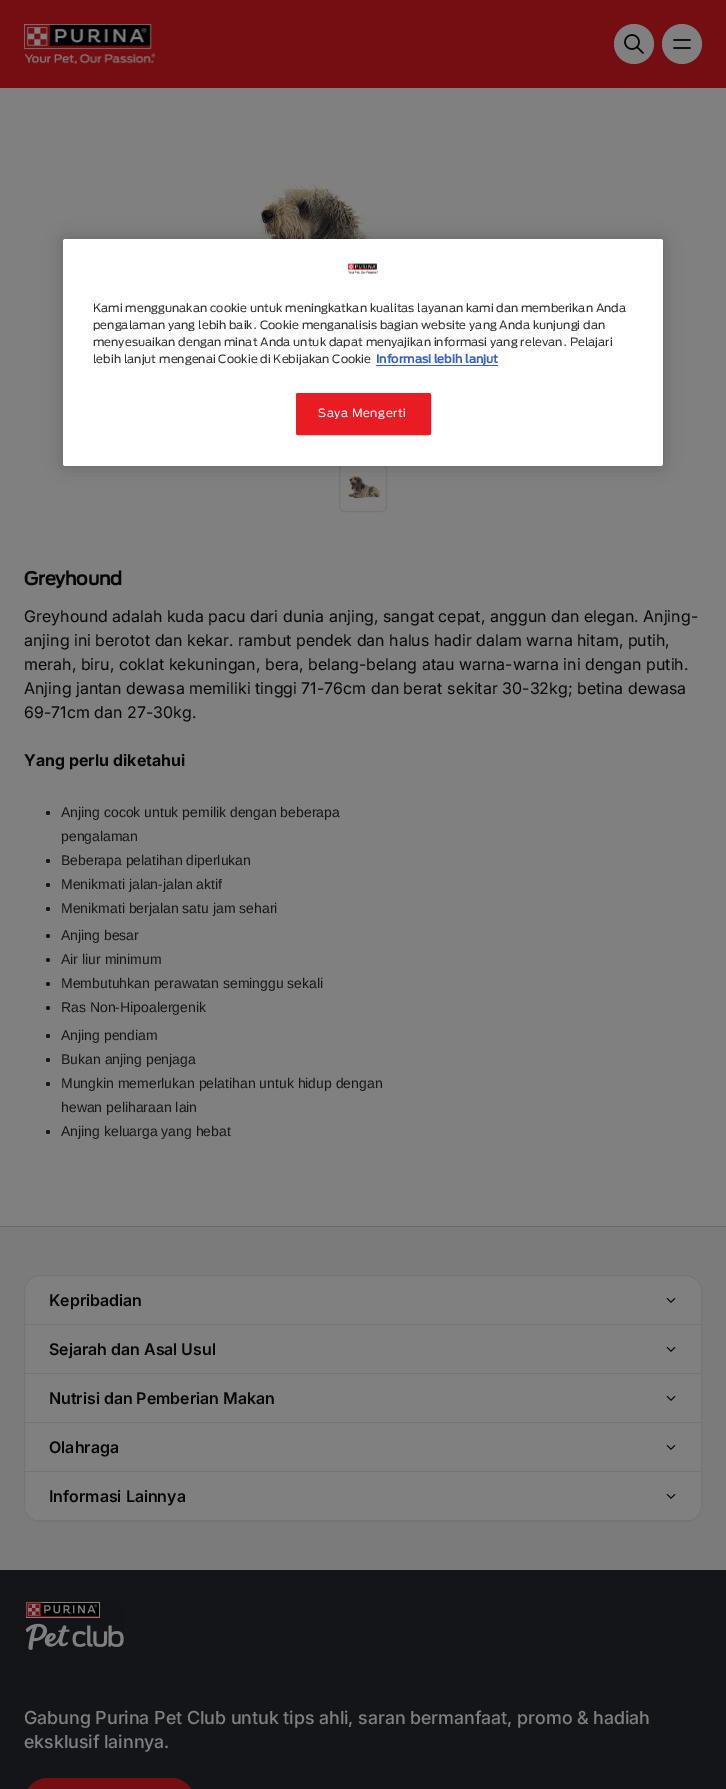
%!PS-Adobe-3.0
%%BoundingBox: 0 0 726 1789
%%LanguageLevel: 3
%%Pages: 1
%%EndComments
%%BeginProlog
/m { moveto } bind def
/f { fill } bind def
/S { stroke } bind def
/q { gsave } bind def
/Q { grestore } bind def
/fn { [ exch dup neg 0 0 3 -1 roll 0 0 ] selectfont } def
/tx { moveto show } def
/bx { rectfill } def
/al { dup .setfillconstantalpha .setstrokeconstantalpha } def
/ci { newpath 0 360 arc closepath } def
/rr { 5 dict begin { /r /h /w /y /x } { exch def } forall
  x r add y moveto x w add y 2 copy h add r arct x w add y h add x 1 index r arct
  x y h add x y r arct x y 2 copy exch w add exch r arct closepath end } def
/sh { 12 dict begin { /a /b /q /h /w /y /x } { exch def } forall gsave /was 0 def
  9 -2 -9 { dup b mul 4 div /e exch def 1 sub .425 mul 2.718 exch exp 1 add a .99 .min exch div /now exch def
    1 1 now sub 1 was sub div sub al /was now def
    w h .min e 2 mul add 0 gt { x e sub y e sub w e 2 mul add h e 2 mul add
      q e add b .6 mul add w h .min 2 div e add .min 0 .max rr fill } if } for grestore end } def
/im { 5 dict begin { /h /w /y /x /name } { exch def } forall
  gsave x y translate w h scale
  w h 8 [w 0 0 h 0 0] name (r) file false 3 colorimage grestore end } def
%%EndProlog
%%BeginSetup
<< /PageSize [726 1789] /PageUsesTransparency true >> setpagedevice
%%EndSetup
%%Page: 1 1
0 .pushpdf14devicefilter
0 1789 translate 1 -1 scale
4 setmiterlimit
0.482 setgray
0 0 726 1789 bx
0.502 setgray
0 88 726 1138 bx
(image4.raw) 251 184 245 55 im
0.459 setgray
339.5 464.5 47 47 5.5 rr S
(image5.raw) 348 476 33 23 im
0 setgray
63 239 600 227 2.5 9 0.2 sh
1 setgray
63 239 600 227 2.5 rr f
(image0.raw) 347 263 32 11 im
/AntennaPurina-Regular 11.4 fn
0.2 setgray
(Kami menggunakan cookie untuk meningkatkan kualitas layanan kami dan memberikan Anda) 93 312 tx
(pengalaman yang lebih baik. Cookie menganalisis bagian website yang Anda kunjungi dan) 93 329 tx
(menyesuaikan dengan minat Anda untuk dapat menyajikan informasi yang relevan. Pelajari) 93 346 tx
(lebih lanjut mengenai Cookie di Kebijakan Cookie) 93 363 tx
/AntennaPurina-Bold 11.4 fn
0.22 0.376 0.745 setrgbcolor
(Informasi lebih lanjut) 376 363 tx
376 365 122 1 bx
0.914 0.11 0.141 setrgbcolor
296.5 393.5 134 41 1.5 rr q f Q
S
/AntennaPurina-Regular 11.4 fn
1 setgray
318 417 m 0.5 0 (Saya Mengerti) ashow
0.459 0.055 0.071 setrgbcolor
0 0 726 88 bx
(image1.raw) 24 24 131 40 im
0.502 setgray
634 44 20 ci f
(image2.raw) 624 34 20 20 im
682 44 20 ci f
(image3.raw) 673 39 18 10 im
/AntennaPurina-Bold 18 fn
0.024 0.027 0.031 setrgbcolor
24 585 m -0.25 0 (Greyhound) ashow
/Inter-Regular 16 fn
24 622 m 0.05 0 (Greyhound adalah kuda pacu dari dunia anjing, sangat cepat, anggun dan elegan. Anjing-) ashow
24 646 m 0.05 0 (anjing ini berotot dan kekar. rambut pendek dan halus hadir dalam warna hitam, putih,) ashow
24 670 m 0.05 0 (merah, biru, coklat kekuningan, bera, belang-belang atau warna-warna ini dengan putih.) ashow
24 694 m 0.05 0 (Anjing jantan dewasa memiliki tinggi 71-76cm dan berat sekitar 30-32kg; betina dewasa) ashow
24 718 m 0.05 0 (69-71cm dan 27-30kg.) ashow
/Inter-Bold 16 fn
24 766 m 0.05 0 (Yang perlu diketahui) ashow
0.086 setgray
48 813 2 ci f
/LiberationSans-Regular 14 fn
(Anjing cocok untuk pemilik dengan beberapa) 61 817 tx
(pengalaman) 61 841 tx
48 861 2 ci f
(Beberapa pelatihan diperlukan) 61 865 tx
48 885 2 ci f
(Menikmati jalan-jalan aktif) 61 889 tx
48 909 2 ci f
(Menikmati berjalan satu jam sehari) 61 913 tx
48 936 2 ci f
(Anjing besar) 61 940 tx
48 960 2 ci f
(Air liur minimum) 61 964 tx
48 984 2 ci f
(Membutuhkan perawatan seminggu sekali) 61 988 tx
48 1008 2 ci f
(Ras Non-Hipoalergenik) 61 1012 tx
48 1036 2 ci f
(Anjing pendiam) 61 1040 tx
48 1060 2 ci f
(Bukan anjing penjaga) 61 1064 tx
48 1084 2 ci f
(Mungkin memerlukan pelatihan untuk hidup dengan) 61 1088 tx
(hewan peliharaan lain) 61 1112 tx
48 1132 2 ci f
(Anjing keluarga yang hebat) 61 1136 tx
0.424 setgray
0 1226 726 1 bx
0.502 setgray
24.5 1275.5 677 246 15.5 rr q f Q
0.459 setgray
S
0.451 0.455 0.463 setrgbcolor
25 1324 676 1 bx
/Inter-SemiBold 16 fn
0.024 0.027 0.031 setrgbcolor
(Kepribadian) 49 1306 tx
(image6.raw) 666 1298 10 5 im
0.451 0.455 0.463 setrgbcolor
25 1373 676 1 bx
0.024 0.027 0.031 setrgbcolor
(Sejarah dan Asal Usul) 49 1355 tx
(image6.raw) 666 1347 10 5 im
0.451 0.455 0.463 setrgbcolor
25 1422 676 1 bx
0.024 0.027 0.031 setrgbcolor
(Nutrisi dan Pemberian Makan) 49 1404 tx
(image6.raw) 666 1396 10 5 im
0.451 0.455 0.463 setrgbcolor
25 1471 676 1 bx
0.024 0.027 0.031 setrgbcolor
(Olahraga) 49 1453 tx
(image6.raw) 666 1445 10 5 im
q
25 1276 676 245 15 rr clip newpath
0.451 0.455 0.463 setrgbcolor
35 1520 656 1 bx
Q
(Informasi Lainnya) 49 1502 tx
(image6.raw) 666 1494 10 5 im
0.075 0.082 0.094 setrgbcolor
0 1570 726 219 bx
(image7.raw) 25 1602 99 48 im
/Inter-Medium 18 fn
0.502 setgray
(Gabung Purina Pet Club untuk tips ahli, saran bermanfaat, promo & hadiah) 24 1724 tx
(eksklusif lainnya.) 24 1748 tx
0.459 0.055 0.071 setrgbcolor
24 1778 171 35 24 rr f
.poppdf14devicefilter showpage
%%EOF
